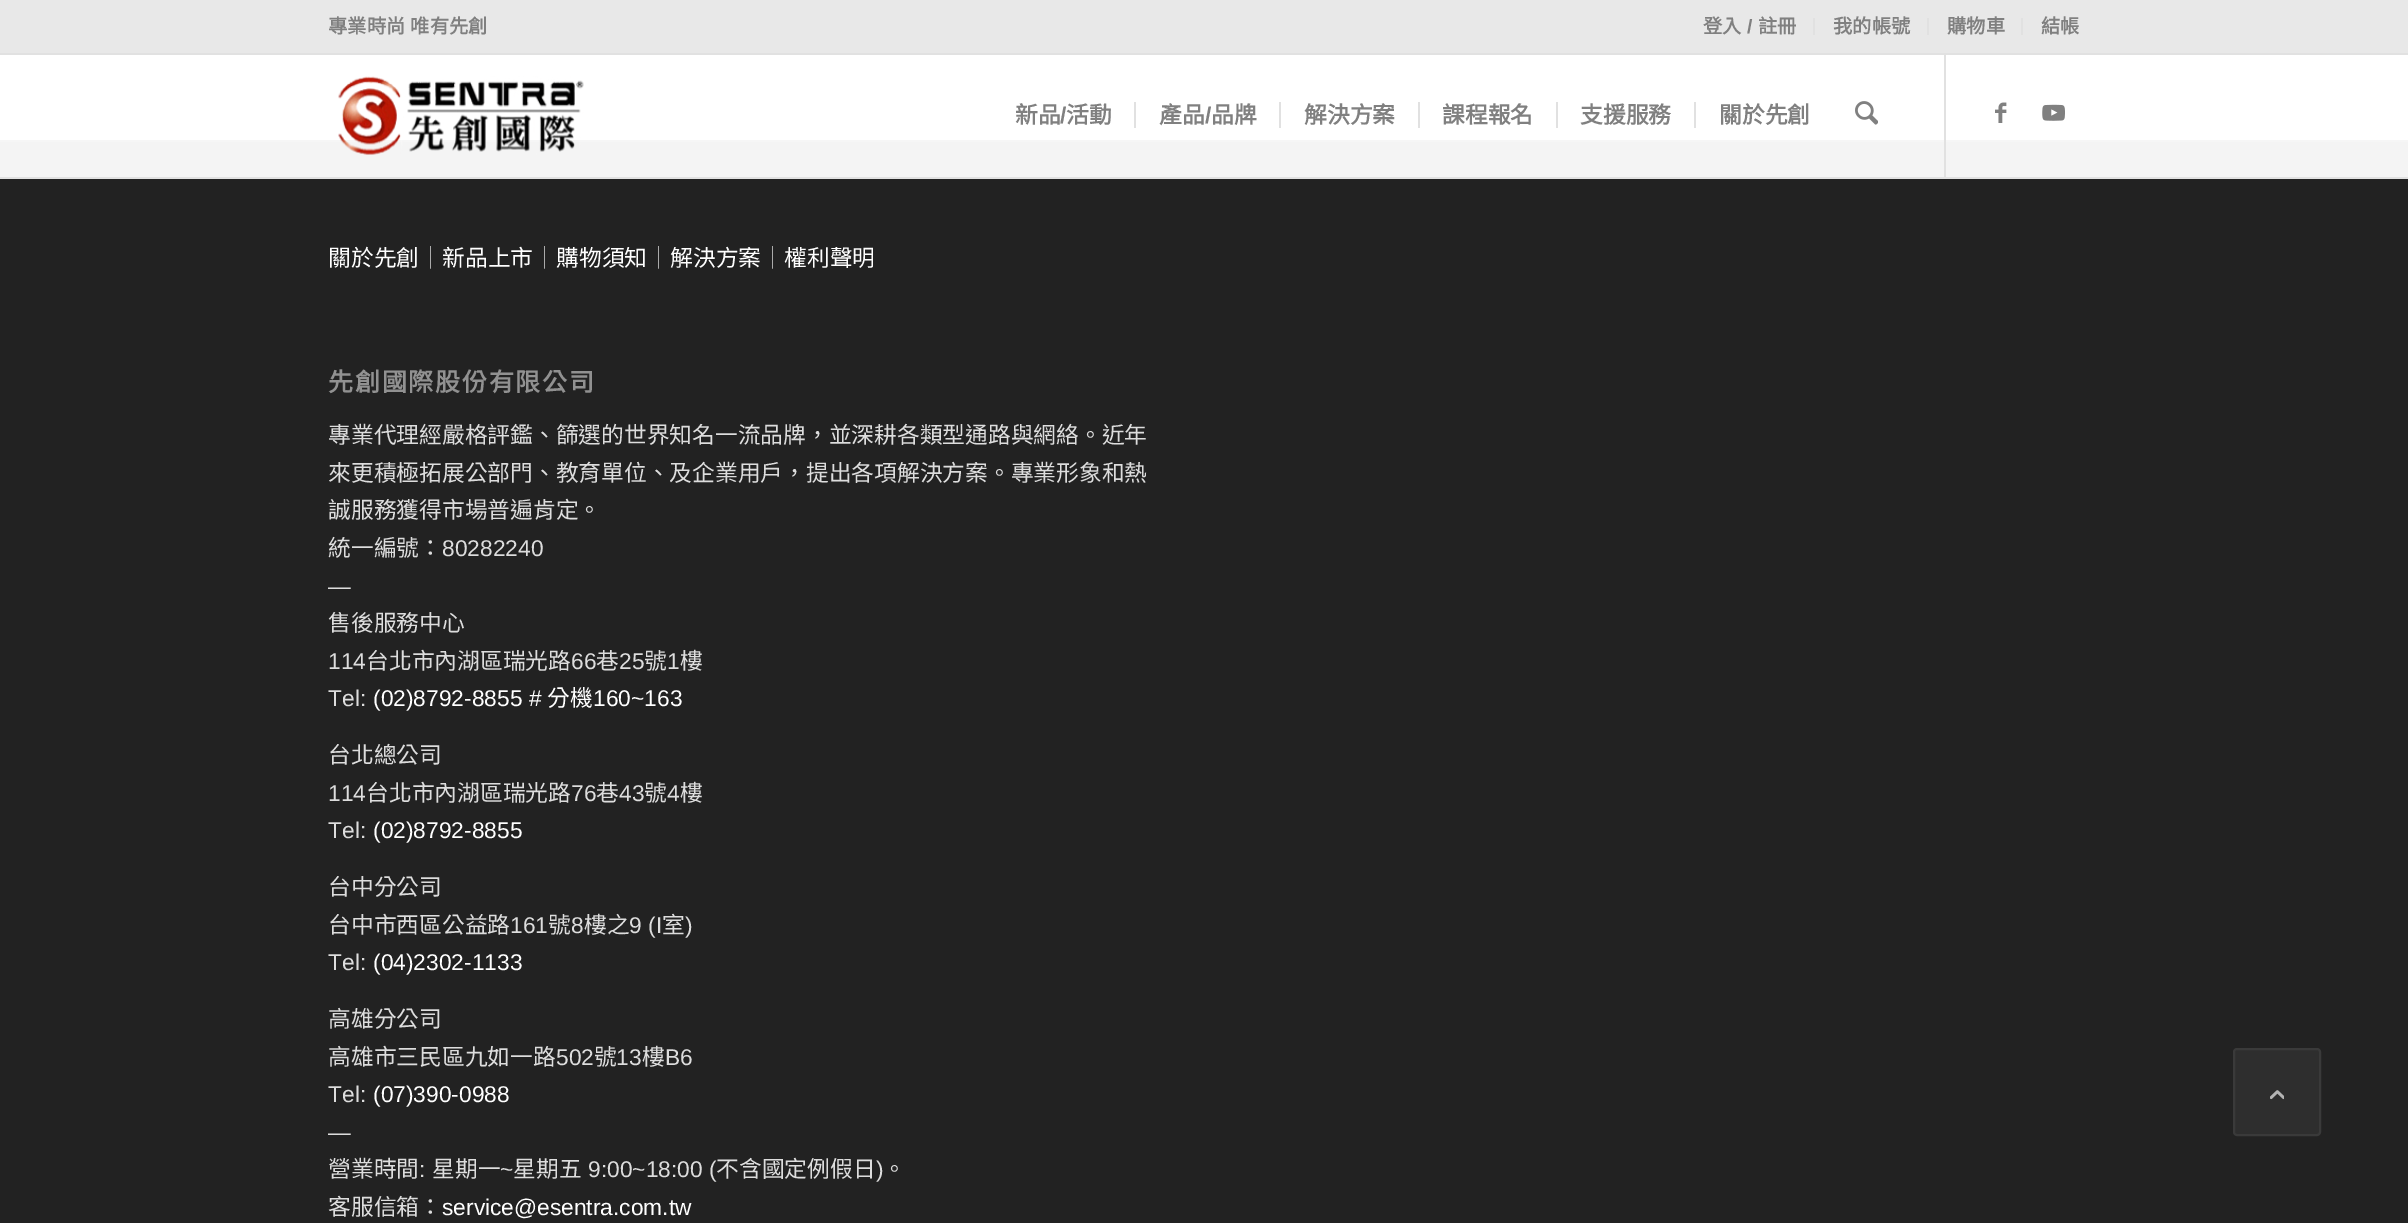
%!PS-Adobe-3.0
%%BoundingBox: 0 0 2408 1223
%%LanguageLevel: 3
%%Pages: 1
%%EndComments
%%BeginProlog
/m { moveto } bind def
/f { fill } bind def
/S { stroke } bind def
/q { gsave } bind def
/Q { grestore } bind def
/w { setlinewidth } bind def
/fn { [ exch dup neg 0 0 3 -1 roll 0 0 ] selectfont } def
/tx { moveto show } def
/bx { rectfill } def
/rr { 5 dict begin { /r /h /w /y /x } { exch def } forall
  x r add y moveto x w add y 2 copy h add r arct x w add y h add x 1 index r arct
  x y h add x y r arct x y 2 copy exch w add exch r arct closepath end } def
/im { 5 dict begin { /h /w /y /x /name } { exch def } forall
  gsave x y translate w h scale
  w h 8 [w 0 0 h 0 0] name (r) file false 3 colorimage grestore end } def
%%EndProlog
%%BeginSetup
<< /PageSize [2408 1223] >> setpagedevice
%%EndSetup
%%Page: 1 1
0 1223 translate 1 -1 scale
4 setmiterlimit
1 setgray
0 0 2408 1223 bx
0.91 setgray
0 0 2408 53 bx
0.957 setgray
0 142 2408 35 bx
0.965 setgray
0 140 2408 2 bx
0.882 setgray
1944 54 2 123 bx
0 53 2408 2 bx
/NotoSansCJKTC-Bold 19.25 fn
0.502 setgray
328 33 m 1 0 32 (專業時尚 唯有先創) widthshow
0.882 setgray
1813 18 2 17 bx
0.502 setgray
(登入) 1703 33 tx
/LiberationSans-Bold 19.25 fn
(/) 1747 33 tx
/NotoSansCJKTC-Bold 19.25 fn
(註冊) 1758 33 tx
0.882 setgray
1927 18 2 17 bx
0.502 setgray
(我的帳號) 1833 33 tx
0.882 setgray
2021 18 2 17 bx
0.502 setgray
(購物車) 1947 33 tx
(結帳) 2041 33 tx
0.882 setgray
0 177 2408 2 bx
(image0.raw) 338 76 246 79 im
/NotoSansCJKTC-Bold 22.75 fn
0.502 setgray
(新品) 1015 123 tx
/LiberationSans-Bold 22.75 fn
(/) 1060 123 tx
/NotoSansCJKTC-Bold 22.75 fn
(活動) 1066 123 tx
(產品) 1159 123 tx
0.882 setgray
1134 102 2 26 bx
/LiberationSans-Bold 22.75 fn
0.502 setgray
(/) 1205 123 tx
/NotoSansCJKTC-Bold 22.75 fn
(品牌) 1211 123 tx
(解決方案) 1304 123 tx
0.882 setgray
1279 102 2 26 bx
0.502 setgray
(課程報名) 1442 123 tx
0.882 setgray
1418 102 2 26 bx
0.502 setgray
(支援服務) 1580 123 tx
0.882 setgray
1556 102 2 26 bx
0.502 setgray
(關於先創) 1719 123 tx
0.882 setgray
1694 102 2 26 bx
(image1.raw) 1855 101 23 24 im
(image2.raw) 1995 102 12 21 im
(image3.raw) 2042 104 23 17 im
0.133 setgray
0 179 2408 1044 bx
/NotoSansCJKTC-Regular 22.75 fn
1 setgray
(關於先創) 328 266 tx
0.867 setgray
(｜) 419 266 tx
1 setgray
(新品上市) 442 266 tx
0.867 setgray
(｜) 533 266 tx
1 setgray
(購物須知) 556 266 tx
0.867 setgray
(｜) 647 266 tx
1 setgray
(解決方案) 670 266 tx
0.867 setgray
(｜) 761 266 tx
1 setgray
(權利聲明) 784 266 tx
/NotoSansCJKTC-Bold 25 fn
0.569 setgray
328 391 m 1.75 0 (先創國際股份有限公司) ashow
/NotoSansCJKTC-Regular 22.75 fn
0.867 setgray
(專業代理經嚴格評鑑、篩選的世界知名一流品牌，並深耕各類型通路與網絡。近年) 328 443 tx
(來更積極拓展公部門、教育單位、及企業用戶，提出各項解決方案。專業形象和熱) 328 481 tx
(誠服務獲得市場普遍肯定。) 328 518 tx
(統一編號：) 328 556 tx
/LiberationSans-Regular 22.75 fn
(80282240) 442 556 tx
(—) 328 594 tx
/NotoSansCJKTC-Regular 22.75 fn
(售後服務中心) 328 631 tx
/LiberationSans-Regular 22.75 fn
(114) 328 669 tx
/NotoSansCJKTC-Regular 22.75 fn
(台北市內湖區瑞光路) 366 669 tx
/LiberationSans-Regular 22.75 fn
(66) 571 669 tx
/NotoSansCJKTC-Regular 22.75 fn
(巷) 596 669 tx
/LiberationSans-Regular 22.75 fn
(25) 619 669 tx
/NotoSansCJKTC-Regular 22.75 fn
(號) 644 669 tx
/LiberationSans-Regular 22.75 fn
(1) 667 669 tx
/NotoSansCJKTC-Regular 22.75 fn
(樓) 680 669 tx
/LiberationSans-Regular 22.75 fn
(Tel:) 328 706 tx
1 setgray
(\(02\)8792-8855 #) 373 706 tx
/NotoSansCJKTC-Regular 22.75 fn
(分機) 547 706 tx
/LiberationSans-Regular 22.75 fn
(160~163) 593 706 tx
/NotoSansCJKTC-Regular 22.75 fn
0.867 setgray
(台北總公司) 328 763 tx
/LiberationSans-Regular 22.75 fn
(114) 328 801 tx
/NotoSansCJKTC-Regular 22.75 fn
(台北市內湖區瑞光路) 366 801 tx
/LiberationSans-Regular 22.75 fn
(76) 571 801 tx
/NotoSansCJKTC-Regular 22.75 fn
(巷) 596 801 tx
/LiberationSans-Regular 22.75 fn
(43) 619 801 tx
/NotoSansCJKTC-Regular 22.75 fn
(號) 644 801 tx
/LiberationSans-Regular 22.75 fn
(4) 667 801 tx
/NotoSansCJKTC-Regular 22.75 fn
(樓) 680 801 tx
/LiberationSans-Regular 22.75 fn
(Tel:) 328 838 tx
1 setgray
(\(02\)8792-8855) 373 838 tx
/NotoSansCJKTC-Regular 22.75 fn
0.867 setgray
(台中分公司) 328 895 tx
(台中市西區公益路) 328 933 tx
/LiberationSans-Regular 22.75 fn
(161) 510 933 tx
/NotoSansCJKTC-Regular 22.75 fn
(號) 548 933 tx
/LiberationSans-Regular 22.75 fn
(8) 571 933 tx
/NotoSansCJKTC-Regular 22.75 fn
(樓之) 584 933 tx
/LiberationSans-Regular 22.75 fn
(9 \(I) 629 933 tx
/NotoSansCJKTC-Regular 22.75 fn
(室) 662 933 tx
/LiberationSans-Regular 22.75 fn
(\)) 685 933 tx
(Tel:) 328 970 tx
1 setgray
(\(04\)2302-1133) 373 970 tx
/NotoSansCJKTC-Regular 22.75 fn
0.867 setgray
(高雄分公司) 328 1027 tx
(高雄市三民區九如一路) 328 1065 tx
/LiberationSans-Regular 22.75 fn
(502) 556 1065 tx
/NotoSansCJKTC-Regular 22.75 fn
(號) 594 1065 tx
/LiberationSans-Regular 22.75 fn
(13) 616 1065 tx
/NotoSansCJKTC-Regular 22.75 fn
(樓) 642 1065 tx
/LiberationSans-Regular 22.75 fn
(B6) 665 1065 tx
(Tel:) 328 1102 tx
1 setgray
(\(07\)390-0988) 373 1102 tx
0.867 setgray
(—) 328 1140 tx
/NotoSansCJKTC-Regular 22.75 fn
(營業時間) 328 1177 tx
/LiberationSans-Regular 22.75 fn
(:) 419 1177 tx
/NotoSansCJKTC-Regular 22.75 fn
(星期一) 432 1177 tx
/LiberationSans-Regular 22.75 fn
(~) 500 1177 tx
/NotoSansCJKTC-Regular 22.75 fn
(星期五) 513 1177 tx
/LiberationSans-Regular 22.75 fn
(9:00~18:00 \() 588 1177 tx
/NotoSansCJKTC-Regular 22.75 fn
(不含國定例假日) 716 1177 tx
/LiberationSans-Regular 22.75 fn
(\)) 876 1177 tx
/NotoSansCJKTC-Regular 22.75 fn
(。) 883 1177 tx
(客服信箱：) 328 1215 tx
/LiberationSans-Regular 22.75 fn
1 setgray
(service@esentra.com.tw) 442 1215 tx
0.18 setgray
2234 1049 86 86 3 rr q f Q
0.227 setgray
2 w
S
(image4.raw) 2270 1090 14 10 im
showpage
%%EOF
